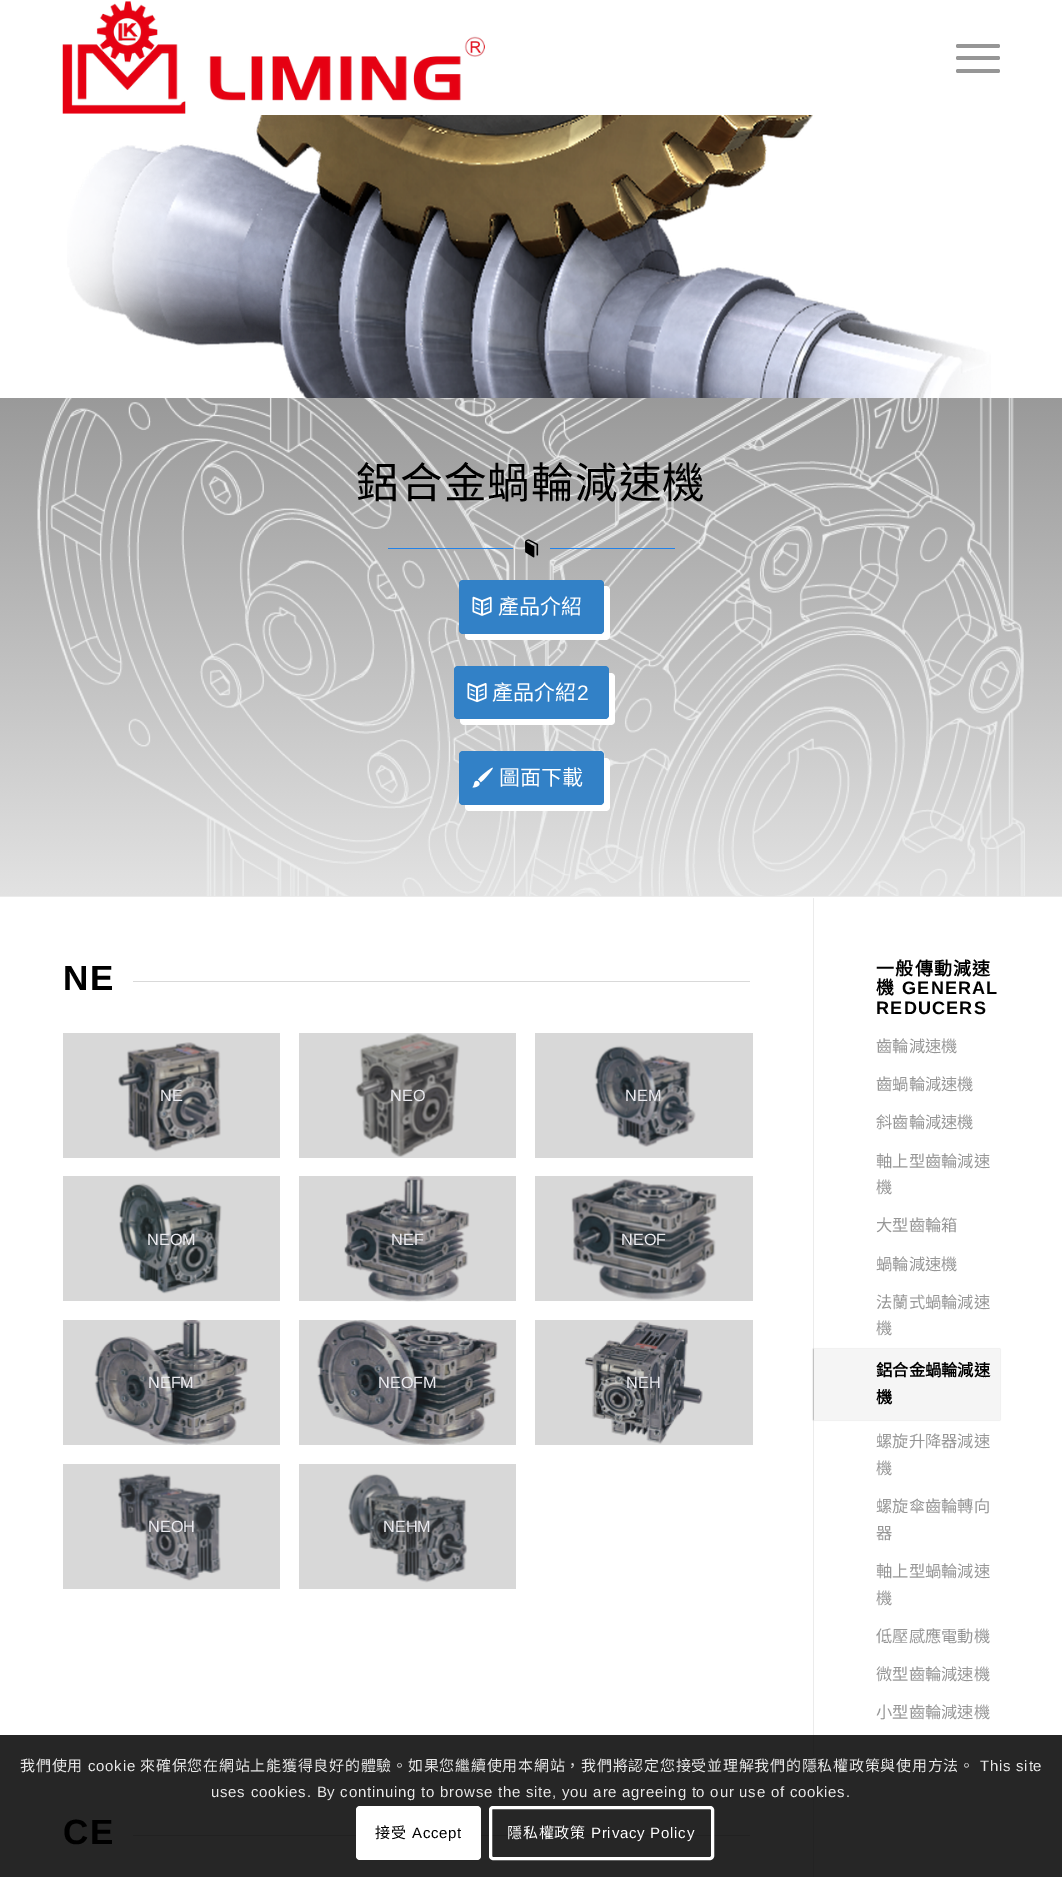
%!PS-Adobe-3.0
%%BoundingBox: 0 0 1062 1877
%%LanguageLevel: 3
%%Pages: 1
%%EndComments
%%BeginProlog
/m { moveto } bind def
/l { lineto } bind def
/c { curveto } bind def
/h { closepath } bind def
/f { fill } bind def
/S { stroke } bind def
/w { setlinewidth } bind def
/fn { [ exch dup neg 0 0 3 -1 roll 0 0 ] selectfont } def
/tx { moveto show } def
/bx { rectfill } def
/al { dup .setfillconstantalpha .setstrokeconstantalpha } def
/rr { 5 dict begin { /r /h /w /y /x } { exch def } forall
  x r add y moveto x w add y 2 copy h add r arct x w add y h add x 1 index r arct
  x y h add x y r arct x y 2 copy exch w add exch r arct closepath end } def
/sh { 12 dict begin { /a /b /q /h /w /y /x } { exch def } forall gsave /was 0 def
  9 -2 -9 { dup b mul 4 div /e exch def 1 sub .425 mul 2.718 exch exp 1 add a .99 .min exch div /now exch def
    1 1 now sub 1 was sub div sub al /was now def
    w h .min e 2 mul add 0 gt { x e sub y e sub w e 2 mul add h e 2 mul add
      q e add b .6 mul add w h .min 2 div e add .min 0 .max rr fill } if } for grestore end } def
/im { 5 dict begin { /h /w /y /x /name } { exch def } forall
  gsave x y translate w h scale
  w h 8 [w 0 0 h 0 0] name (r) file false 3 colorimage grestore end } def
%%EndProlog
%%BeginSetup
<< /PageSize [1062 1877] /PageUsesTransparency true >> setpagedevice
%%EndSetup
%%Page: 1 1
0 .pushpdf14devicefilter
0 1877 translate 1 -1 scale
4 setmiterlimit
1 setgray
0 0 1062 1877 bx
(image0.raw) 62 1 423 113 im
0.588 setgray
956 56 44 4 2 rr f
956 44 44 4 2 rr f
956 69 44 4 2 rr f
(image1.raw) 67 115 924 283 im
(image2.raw) 0 398 1062 498 im
/NotoSansCJKTC-Regular 42.5 fn
0 setgray
356 498 m 1.25 0 (鋁合金蝸輪減速機) ashow
0.133 0.51 0.91 setrgbcolor
388 548 125 1 bx
(image3.raw) 525 539 14 19 im
550 548 125 1 bx
1 setgray
465 634 m 465 636 l 465 638 467 640 469 640 c 606 640 l 608 640 610 638 610 636 c 610 590 l 610 588 608 586 606 586 c 604 586 l 604 630 l 604 632 602 634 600 634 c h f
0.196 0.506 0.78 setrgbcolor
459 580 145 54 4 rr f
(image4.raw) 472 596 20 20 im
/NotoSansCJKTC-Regular 21 fn
1 setgray
(產品介紹) 498 614 tx
460 719 m 460 721 l 460 723 462 725 464 725 c 611 725 l 613 725 615 723 615 721 c 615 677 l 615 675 613 673 611 673 c 609 673 l 609 715 l 609 717 607 719 605 719 c h f
0.196 0.506 0.78 setrgbcolor
454 666 155 53 4 rr f
(image5.raw) 467 683 20 20 im
1 setgray
(產品介紹) 492 700 tx
/LiberationSans-Regular 21 fn
(2) 577 700 tx
465 805 m 465 807 l 465 809 467 811 469 811 c 606 811 l 608 811 610 809 610 807 c 610 762 l 610 760 608 758 606 758 c 604 758 l 604 801 l 604 803 602 805 600 805 c h f
0.196 0.506 0.78 setrgbcolor
459 751 145 54 4 rr f
(image6.raw) 472 767 21 21 im
/NotoSansCJKTC-Regular 21 fn
1 setgray
(圖面下載) 499 785 tx
0.149 setgray
0 1735 1062 142 bx
0.847 setgray
299 1464 217 125 bx
63 1464 217 125 bx
535 1320 218 125 bx
299 1320 217 125 bx
63 1320 217 125 bx
535 1176 218 125 bx
299 1176 217 125 bx
63 1176 217 125 bx
535 1033 218 125 bx
299 1033 217 125 bx
63 1033 217 125 bx
0.922 setgray
0 896 1062 1 bx
813 898 1 837 bx
0.137 setgray
813 1735 1 142 bx
/LiberationSans-Bold 35 fn
0 setgray
63 990 m 1.25 0 (NE) ashow
0.851 setgray
133 981 617 1 bx
(image7.raw) 118 1042 103 110 im
/LiberationSans-Regular 16.25 fn
0.922 0.922 0.941 setrgbcolor
(NE) 160 1101 tx
(image8.raw) 355 1033 105 124 im
(NEO) 390 1101 tx
(image9.raw) 594 1045 102 102 im
(NEM) 625 1101 tx
(image10.raw) 119 1183 103 111 im
(NEOM) 147 1245 tx
(image11.raw) 344 1176 126 126 im
(NEF) 391 1245 tx
(image12.raw) 571 1178 146 123 im
(NEOF) 621 1245 tx
(image13.raw) 94 1320 154 125 im
(NEFM) 148 1388 tx
(image14.raw) 316 1320 182 125 im
(NEOFM) 378 1388 tx
(image15.raw) 584 1321 119 123 im
(NEH) 626 1388 tx
(image16.raw) 117 1473 104 108 im
(NEOH) 148 1532 tx
(image17.raw) 348 1473 120 110 im
(NEHM) 383 1532 tx
/LiberationSans-Bold 35 fn
0 setgray
63 1844 m 1.25 0 (CE) ashow
0.129 setgray
133 1835 617 1 bx
/NotoSansCJKTC-Bold 18 fn
0 setgray
876 975 m 1.25 0 (一般傳動減速) ashow
876 994 m 1.25 0 (機) ashow
/LiberationSans-Bold 18 fn
902 994 m 1.25 0 (GENERAL) ashow
876 1014 m 1.25 0 (REDUCERS) ashow
/NotoSansCJKTC-Regular 16.25 fn
0.588 setgray
(齒輪減速機) 876 1052 tx
(齒蝸輪減速機) 876 1090 tx
(斜齒輪減速機) 876 1128 tx
(軸上型齒輪減速) 876 1167 tx
(機) 876 1193 tx
(大型齒輪箱) 876 1231 tx
(蝸輪減速機) 876 1270 tx
(法蘭式蝸輪減速) 876 1308 tx
(機) 876 1334 tx
0 setgray
813 1349 187 71 0 0.5 0.2 sh
0.961 setgray
814 1349 186 71 bx
/NotoSansCJKTC-Bold 16.25 fn
0 setgray
(鋁合金蝸輪減速) 876 1376 tx
(機) 876 1403 tx
/NotoSansCJKTC-Regular 16.25 fn
0.588 setgray
(螺旋升降器減速) 876 1447 tx
(機) 876 1474 tx
(螺旋傘齒輪轉向) 876 1512 tx
(器) 876 1539 tx
(軸上型蝸輪減速) 876 1577 tx
(機) 876 1604 tx
(低壓感應電動機) 876 1642 tx
(微型齒輪減速機) 876 1680 tx
(小型齒輪減速機) 876 1718 tx
/NotoSansCJKTC-Regular 15 fn
0.914 setgray
20 1771 m 0.75 0 (我們使用) ashow
/LiberationSans-Regular 15 fn
88 1771 m 0.75 0 (cookie) ashow
/NotoSansCJKTC-Regular 15 fn
140 1771 m 0.75 0 (來確保您在網站上能獲得良好的體驗。如果您繼續使用本網站，我們將認定您接受並理解我們的隱私權政策與使用方法。) ashow
/LiberationSans-Regular 15 fn
980 1771 m 0.75 0 (This site) ashow
211 1797 m 0.75 0 (uses cookies. By continuing to browse the site, you are agreeing to our use of cookies.) ashow
1 setgray
356 1806 125 54 4 rr f
/NotoSansCJKTC-Regular 15 fn
0 setgray
375 1838 m 0.75 0 (接受) ashow
/LiberationSans-Regular 15 fn
412 1838 m 0.75 0 (Accept) ashow
1 setgray
3 w
490.5 1807.5 222 51 2.5 rr S
/NotoSansCJKTC-Regular 15 fn
507 1838 m 0.75 0 (隱私權政策) ashow
/LiberationSans-Regular 15 fn
591 1838 m 0.75 0 (Privacy Policy) ashow
.poppdf14devicefilter showpage
%%EOF
